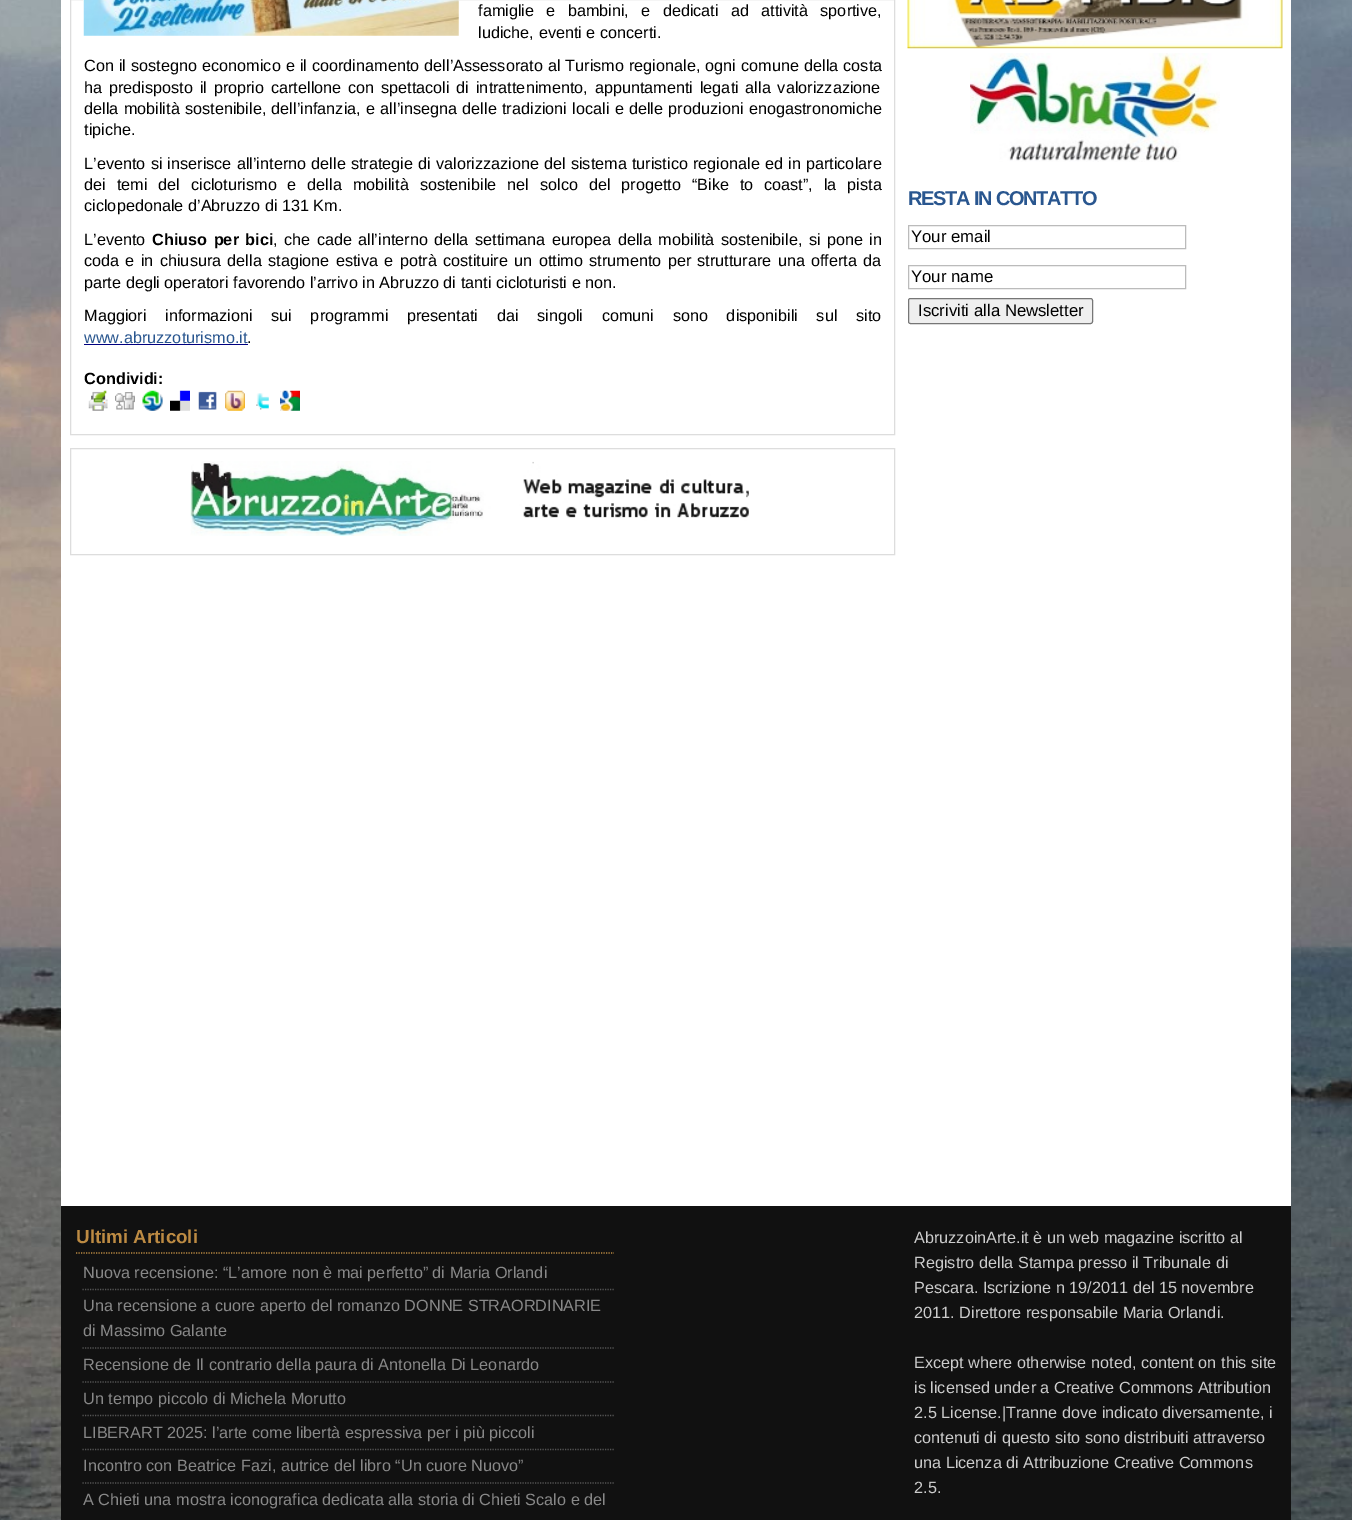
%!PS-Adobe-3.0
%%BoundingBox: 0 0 1352 1520
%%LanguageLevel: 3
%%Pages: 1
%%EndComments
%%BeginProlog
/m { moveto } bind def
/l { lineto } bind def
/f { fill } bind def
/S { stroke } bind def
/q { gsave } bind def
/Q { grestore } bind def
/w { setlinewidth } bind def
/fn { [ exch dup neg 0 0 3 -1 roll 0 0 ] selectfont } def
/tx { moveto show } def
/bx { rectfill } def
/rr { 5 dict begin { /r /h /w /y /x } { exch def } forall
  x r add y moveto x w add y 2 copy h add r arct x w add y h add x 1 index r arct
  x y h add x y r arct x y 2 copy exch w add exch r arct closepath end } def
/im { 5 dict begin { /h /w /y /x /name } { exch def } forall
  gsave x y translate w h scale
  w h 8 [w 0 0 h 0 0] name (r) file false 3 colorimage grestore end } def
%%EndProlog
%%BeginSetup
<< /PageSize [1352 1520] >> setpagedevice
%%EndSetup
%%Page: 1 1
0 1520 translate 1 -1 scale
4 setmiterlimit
1 setgray
0 0 1352 1520 bx
(image0.raw) 0 0 1352 1520 im
61 0 1230 1206 bx
0.867 setgray
70.5 -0.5 824 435 rectstroke
(image1.raw) 83 0 376 36 im
/LiberationSans-Regular 16.25 fn
0 setgray
478 16 m 7.75 0 32 (famiglie e bambini, e dedicati ad attività sportive,) widthshow
(ludiche, eventi e concerti.) 478 38 tx
84 71 m 0.5 0 32 (Con il sostegno economico e il coordinamento dell’Assessorato al Turismo regionale, ogni comune della costa) widthshow
84 93 m 2.25 0 32 (ha predisposto il proprio cartellone con spettacoli di intrattenimento, appuntamenti legati alla valorizzazione) widthshow
84 114 m 0.75 0 32 (della mobilità sostenibile, dell’infanzia, e all’insegna delle tradizioni locali e delle produzioni enogastronomiche) widthshow
(tipiche.) 84 135 tx
84 169 m 0.6 0 32 (L’evento si inserisce all’interno delle strategie di valorizzazione del sistema turistico regionale ed in particolare) widthshow
84 190 m 6.4 0 32 (dei temi del cicloturismo e della mobilità sostenibile nel solco del progetto “Bike to coast”, la pista) widthshow
(ciclopedonale d’Abruzzo di 131 Km.) 84 211 tx
(L’evento) 84 245 tx
/LiberationSans-Bold 16.25 fn
152 245 m 2 0 32 (Chiuso per bici) widthshow
/LiberationSans-Regular 16.25 fn
273 245 m 1.9 0 32 (, che cade all’interno della settimana europea della mobilità sostenibile, si pone in) widthshow
84 266 m 1.75 0 32 (coda e in chiusura della stagione estiva e potrà costituire un ottimo strumento per strutturare una offerta da) widthshow
(parte degli operatori favorendo l’arrivo in Abruzzo di tanti cicloturisti e non.) 84 288 tx
84 321 m 14.1 0 32 (Maggiori informazioni sui programmi presentati dai singoli comuni sono disponibili sul sito) widthshow
0.161 0.337 0.561 setrgbcolor
(www.abruzzoturismo.it) 84 343 tx
0 0 0.502 setrgbcolor
84 344 164 1 bx
0 setgray
(.) 247 343 tx
/LiberationSans-Bold 16.25 fn
(Condividi:) 84 384 tx
(image2.raw) 88 390 20 21 im
(image3.raw) 115 392 20 18 im
(image4.raw) 142 390 21 21 im
(image5.raw) 170 390 20 21 im
(image6.raw) 198 391 19 19 im
(image7.raw) 225 390 20 21 im
(image8.raw) 256 393 13 17 im
(image9.raw) 280 390 20 21 im
0.867 setgray
70.5 448.5 824 106 rectstroke
(image10.raw) 190 461 559 75 im
(image11.raw) 907 0 376 49 im
(image12.raw) 970 53 250 109 im
/LiberationSans-Bold 20 fn
0.161 0.337 0.561 setrgbcolor
908 205 m -1.25 0 (RESTA IN CONTATTO) ashow
0.733 setgray
908.5 225.5 277 23 rectstroke
/LiberationSans-Regular 16.75 fn
0 setgray
(Your email) 911 242 tx
0.733 setgray
908.5 265.5 277 23 rectstroke
0 setgray
(Your name) 911 282 tx
0.937 setgray
908.5 298.5 184 25 2 rr q f Q
0.463 setgray
S
0 setgray
(Iscriviti alla Newsletter) 918 316 tx
0.067 setgray
61 1206 1230 314 bx
0.741 0.545 0.263 setrgbcolor
1.2 w
[1.25 1.25] 0 setdash
76 1253 m 614 1253 l S
/LiberationSans-Bold 18.75 fn
(Ultimi Articoli) 76 1243 tx
0.333 setgray
82.5 1289.5 m 614 1289.5 l S
/LiberationSans-Regular 16.25 fn
0.533 setgray
(Nuova recensione: “L’amore non è mai perfetto” di Maria Orlandi) 83 1278 tx
0.333 setgray
82.5 1348 m 614 1348 l S
0.533 setgray
(Una recensione a cuore aperto del romanzo DONNE STRAORDINARIE) 83 1311 tx
(di Massimo Galante) 83 1336 tx
0.333 setgray
82.5 1382 m 614 1382 l S
0.533 setgray
(Recensione de Il contrario della paura di Antonella Di Leonardo) 83 1370 tx
0.333 setgray
82.5 1415.5 m 614 1415.5 l S
0.533 setgray
(Un tempo piccolo di Michela Morutto) 83 1404 tx
0.333 setgray
82.5 1449.5 m 614 1449.5 l S
0.533 setgray
(LIBERART 2025: l’arte come libertà espressiva per i più piccoli) 83 1438 tx
0.333 setgray
82.5 1483 m 614 1483 l S
0.533 setgray
(Incontro con Beatrice Fazi, autrice del libro “Un cuore Nuovo”) 83 1471 tx
(A Chieti una mostra iconografica dedicata alla storia di Chieti Scalo e del) 83 1505 tx
0.8 setgray
(AbruzzoinArte.it è un web magazine iscritto al) 914 1243 tx
(Registro della Stampa presso il Tribunale di) 914 1268 tx
(Pescara. Iscrizione n 19/2011 del 15 novembre) 914 1293 tx
(2011. Direttore responsabile Maria Orlandi.) 914 1318 tx
(Except where otherwise noted, content on this site) 914 1368 tx
(is licensed under a Creative Commons Attribution) 914 1393 tx
(2.5 License.|Tranne dove indicato diversamente, i) 914 1418 tx
(contenuti di questo sito sono distribuiti attraverso) 914 1443 tx
(una Licenza di Attribuzione Creative Commons) 914 1468 tx
(2.5.) 914 1493 tx
showpage
%%EOF
